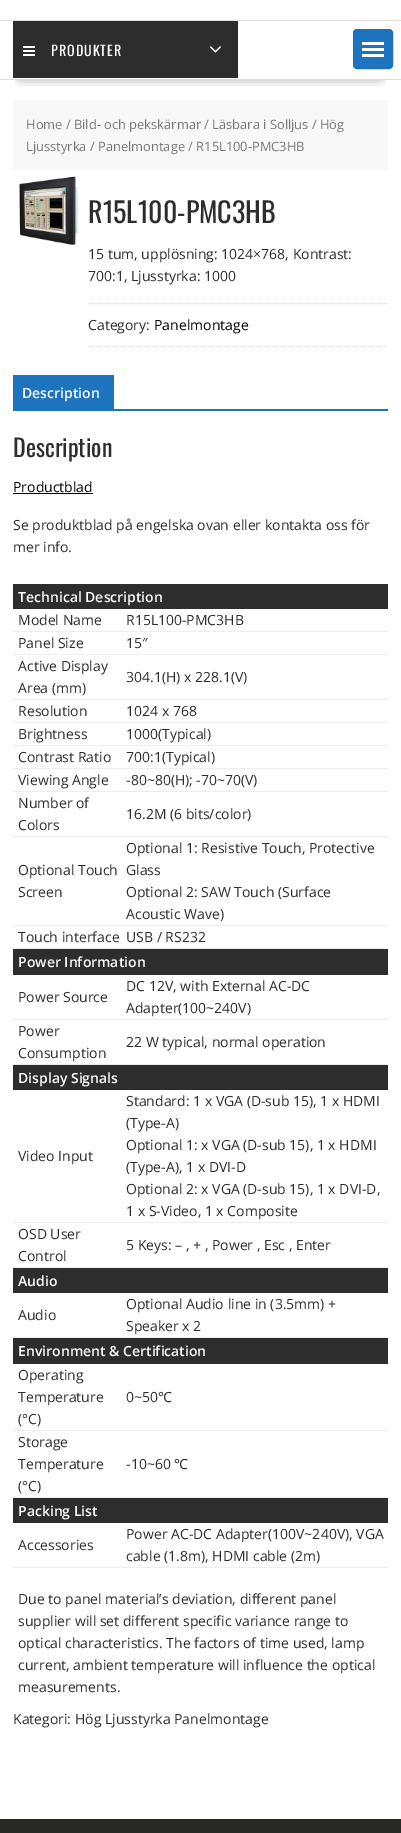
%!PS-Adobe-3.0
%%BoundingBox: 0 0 401 1833
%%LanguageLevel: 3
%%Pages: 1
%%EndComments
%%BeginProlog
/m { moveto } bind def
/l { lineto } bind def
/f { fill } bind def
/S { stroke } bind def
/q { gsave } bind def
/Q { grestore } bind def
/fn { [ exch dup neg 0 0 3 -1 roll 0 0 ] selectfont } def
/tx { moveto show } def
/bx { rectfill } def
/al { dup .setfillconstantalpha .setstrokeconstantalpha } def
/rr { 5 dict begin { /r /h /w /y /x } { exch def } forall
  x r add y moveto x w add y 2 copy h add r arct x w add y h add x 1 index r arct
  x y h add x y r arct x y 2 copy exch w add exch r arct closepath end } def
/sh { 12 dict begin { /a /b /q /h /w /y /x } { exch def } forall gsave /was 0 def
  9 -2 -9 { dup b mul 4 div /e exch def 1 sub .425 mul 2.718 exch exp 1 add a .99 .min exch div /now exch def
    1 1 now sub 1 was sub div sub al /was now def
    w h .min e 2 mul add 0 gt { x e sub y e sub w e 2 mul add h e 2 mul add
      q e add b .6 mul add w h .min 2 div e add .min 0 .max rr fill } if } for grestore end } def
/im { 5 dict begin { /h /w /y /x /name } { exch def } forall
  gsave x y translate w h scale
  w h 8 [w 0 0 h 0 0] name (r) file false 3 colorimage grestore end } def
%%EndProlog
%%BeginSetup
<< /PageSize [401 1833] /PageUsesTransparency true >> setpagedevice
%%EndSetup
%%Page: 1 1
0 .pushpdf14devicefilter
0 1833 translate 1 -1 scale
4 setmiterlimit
1 setgray
0 0 401 1833 bx
q
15 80 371 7 rectclip
0 setgray
21 58 359 18 0 5.5 0.75 sh
Q
0.871 setgray
0 20 401 1 bx
0 79 401 1 bx
0.176 setgray
13 21 225 57 bx
(image0.raw) 23 46 12 10 im
/Oswald-Regular 14 fn
1 setgray
51 56 m 1 0 (PRODUKTER) ashow
(image1.raw) 209 46 12 7 im
0.118 0.451 0.745 setrgbcolor
353.5 29.5 39 39 3.5 rr q f Q
S
1 setgray
362 54 22 3 bx
362 48 22 3 bx
362 42 22 3 bx
0.973 setgray
13 100 375 70 bx
/OpenSans-Regular 12.9 fn
0.467 setgray
(Home / Bild- och pekskärmar / Läsbara i Solljus / Hög) 26 129 tx
(Ljusstyrka / Panelmontage / R15L100-PMC3HB) 26 151 tx
(image2.raw) 19 176 59 69 im
/Oswald-Regular 28 fn
0.176 setgray
(R15L100-PMC3HB) 88 223 tx
/OpenSans-Regular 14 fn
(15 tum, upplösning: 1024×768, Kontrast:) 88 259 tx
(700:1, Ljusstyrka: 1000) 88 281 tx
0.867 setgray
[1 1] 0 setdash
88 303.5 m 388 303.5 l S
88 346.5 m 388 346.5 l S
0.176 setgray
(Category:) 88 330 tx
0 setgray
(Panelmontage) 154 330 tx
0.118 0.451 0.745 setrgbcolor
13 375 101 36 bx
/OpenSans-SemiBold 14 fn
1 setgray
(Description) 22 398 tx
0.118 0.451 0.745 setrgbcolor
114 409 274 2 bx
/Oswald-Regular 24 fn
0.176 setgray
(Description) 13 457 tx
/OpenSans-Regular 14 fn
0 setgray
(Productblad) 13 492 tx
13 493 80 1 bx
0.176 setgray
(Se produktblad på engelska ovan eller kontakta oss för) 13 530 tx
(mer info.) 13 552 tx
13 584 375 25 bx
/OpenSans-SemiBold 14 fn
1 setgray
(Technical Description) 18 602 tx
0.933 setgray
13 948 375 1 bx
/OpenSans-Regular 14 fn
0.176 setgray
(Model Name) 18 625 tx
0.933 setgray
13 631 375 1 bx
0.176 setgray
(R15L100-PMC3HB) 126 625 tx
(Panel Size) 18 648 tx
0.933 setgray
13 654 375 1 bx
0.176 setgray
(15″) 126 648 tx
(Active Display) 18 671 tx
(Area \(mm\)) 18 693 tx
0.933 setgray
13 699 375 1 bx
0.176 setgray
(304.1\(H\) x 228.1\(V\)) 126 682 tx
(Resolution) 18 716 tx
0.933 setgray
13 722 375 1 bx
0.176 setgray
(1024 x 768) 126 716 tx
(Brightness) 18 739 tx
0.933 setgray
13 745 375 1 bx
0.176 setgray
(1000\(Typical\)) 126 739 tx
(Contrast Ratio) 18 762 tx
0.933 setgray
13 768 375 1 bx
0.176 setgray
(700:1\(Typical\)) 126 762 tx
(Viewing Angle) 18 785 tx
0.933 setgray
13 791 375 1 bx
0.176 setgray
(-80~80\(H\); -70~70\(V\)) 126 785 tx
(Number of) 18 808 tx
(Colors) 18 830 tx
0.933 setgray
13 836 375 1 bx
0.176 setgray
(16.2M \(6 bits/color\)) 126 819 tx
(Optional Touch) 18 875 tx
(Screen) 18 897 tx
0.933 setgray
13 925 375 1 bx
0.176 setgray
(Optional 1: Resistive Touch, Protective) 126 853 tx
(Glass) 126 875 tx
(Optional 2: SAW Touch \(Surface) 126 897 tx
(Acoustic Wave\)) 126 919 tx
(Touch interface) 18 942 tx
(USB / RS232) 126 942 tx
13 949 375 26 bx
/OpenSans-SemiBold 14 fn
1 setgray
(Power Information) 18 967 tx
0.933 setgray
13 1064 375 1 bx
/OpenSans-Regular 14 fn
0.176 setgray
(Power Source) 18 1002 tx
0.933 setgray
13 1019 375 1 bx
0.176 setgray
(DC 12V, with External AC-DC) 126 991 tx
(Adapter\(100~240V\)) 126 1013 tx
(Power) 18 1036 tx
(Consumption) 18 1058 tx
(22 W typical, normal operation) 126 1047 tx
13 1065 375 25 bx
/OpenSans-SemiBold 14 fn
1 setgray
(Display Signals) 18 1083 tx
0.933 setgray
13 1267 375 1 bx
/OpenSans-Regular 14 fn
0.176 setgray
(Video Input) 18 1161 tx
0.933 setgray
13 1222 375 1 bx
0.176 setgray
(Standard: 1 x VGA \(D-sub 15\), 1 x HDMI) 126 1106 tx
(\(Type-A\)) 126 1128 tx
(Optional 1: x VGA \(D-sub 15\), 1 x HDMI) 126 1150 tx
(\(Type-A\), 1 x DVI-D) 126 1172 tx
(Optional 2: x VGA \(D-sub 15\), 1 x DVI-D,) 126 1194 tx
(1 x S-Video, 1 x Composite) 126 1216 tx
(OSD User) 18 1239 tx
(Control) 18 1261 tx
(5 Keys: – , + , Power , Esc , Enter) 126 1250 tx
13 1268 375 25 bx
/OpenSans-SemiBold 14 fn
1 setgray
(Audio) 18 1286 tx
0.933 setgray
13 1337 375 1 bx
/OpenSans-Regular 14 fn
0.176 setgray
(Audio) 18 1320 tx
(Optional Audio line in \(3.5mm\) +) 126 1309 tx
(Speaker x 2) 126 1331 tx
13 1338 375 26 bx
/OpenSans-SemiBold 14 fn
1 setgray
(Environment & Certification) 18 1356 tx
0.933 setgray
13 1497 375 1 bx
/OpenSans-Regular 14 fn
0.176 setgray
(Operating) 18 1380 tx
(Temperature) 18 1402 tx
(\(°C\)) 18 1424 tx
0.933 setgray
13 1430 375 1 bx
0.176 setgray
(0~50) 126 1402 tx
/NotoSans-Regular 14 fn
(℃) 158 1402 tx
/OpenSans-Regular 14 fn
(Storage) 18 1447 tx
(Temperature) 18 1469 tx
(\(°C\)) 18 1491 tx
(-10~60) 126 1469 tx
/NotoSans-Regular 14 fn
(℃) 174 1469 tx
13 1498 375 25 bx
/OpenSans-SemiBold 14 fn
1 setgray
(Packing List) 18 1516 tx
0.933 setgray
13 1567 375 1 bx
/OpenSans-Regular 14 fn
0.176 setgray
(Accessories) 18 1550 tx
(Power AC-DC Adapter\(100V~240V\), VGA) 126 1539 tx
(cable \(1.8m\), HDMI cable \(2m\)) 126 1561 tx
(Due to panel material’s deviation, different panel) 18 1604 tx
(supplier will set different specific variance range to) 18 1626 tx
(optical characteristics. The factors of time used, lamp) 18 1648 tx
(current, ambient temperature will influence the optical) 18 1670 tx
(measurements.) 18 1692 tx
(Kategori: Hög Ljusstyrka Panelmontage) 13 1724 tx
0.153 0.157 0.137 setrgbcolor
0 1819 401 14 bx
.poppdf14devicefilter showpage
%%EOF
